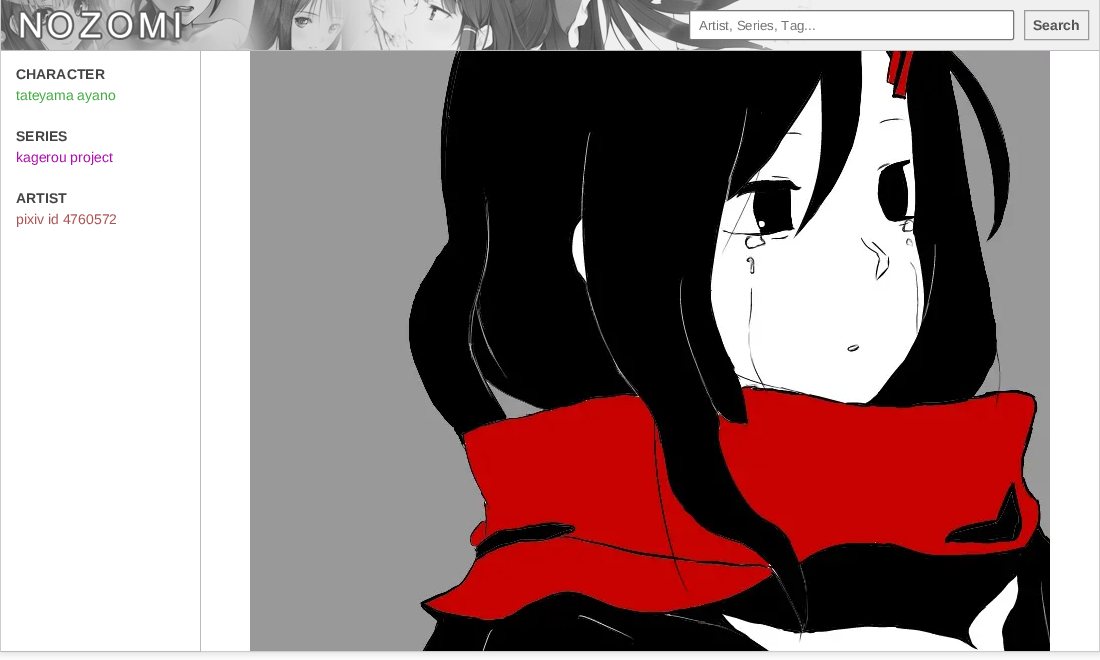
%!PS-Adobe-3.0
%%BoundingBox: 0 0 1100 660
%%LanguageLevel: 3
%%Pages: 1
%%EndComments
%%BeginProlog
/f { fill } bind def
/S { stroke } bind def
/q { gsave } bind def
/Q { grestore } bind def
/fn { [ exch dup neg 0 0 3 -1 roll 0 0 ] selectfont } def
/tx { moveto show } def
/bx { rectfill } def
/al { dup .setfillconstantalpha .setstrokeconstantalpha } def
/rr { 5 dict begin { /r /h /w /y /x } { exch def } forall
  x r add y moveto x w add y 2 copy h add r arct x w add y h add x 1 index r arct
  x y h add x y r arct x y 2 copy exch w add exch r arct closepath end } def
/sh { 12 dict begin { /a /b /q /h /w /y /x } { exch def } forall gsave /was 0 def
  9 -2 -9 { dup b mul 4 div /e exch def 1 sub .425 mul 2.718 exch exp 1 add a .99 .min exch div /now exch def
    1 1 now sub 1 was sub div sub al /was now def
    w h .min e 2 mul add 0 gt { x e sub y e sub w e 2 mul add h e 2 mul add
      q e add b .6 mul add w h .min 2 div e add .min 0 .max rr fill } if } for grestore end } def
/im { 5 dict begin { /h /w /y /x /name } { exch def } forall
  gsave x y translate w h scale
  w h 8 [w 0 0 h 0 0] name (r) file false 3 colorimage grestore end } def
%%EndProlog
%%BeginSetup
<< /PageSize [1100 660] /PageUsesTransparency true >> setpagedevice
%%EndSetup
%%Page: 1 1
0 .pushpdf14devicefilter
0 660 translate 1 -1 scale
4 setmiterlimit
1 setgray
0 0 1100 660 bx
q
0 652 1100 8 rectclip
0.8 setgray
0 0 1100 652 0 5 1 sh
Q
0.8 setgray
1099 0 1 652 bx
201 651 899 1 bx
0 0 1 652 bx
0.941 setgray
812 0 287 50 bx
(image0.raw) 1 0 811 50 im
0.733 setgray
1 50 1098 1 bx
(image1.raw) 18 10 164 30 im
1 setgray
689.5 10.5 324 29 1.5 rr q f Q
0.463 setgray
S
/LiberationSans-Regular 13.25 fn
0.459 setgray
(Artist, Series, Tag...) 699 30 tx
0.6 setgray
1024.5 10.5 64 29 rectstroke
/LiberationSans-Bold 14 fn
0.333 setgray
(Search) 1033 30 tx
0.733 setgray
200 51 1 601 bx
1 651 200 1 bx
0.267 setgray
(CHARACTER) 16 79 tx
/LiberationSans-Regular 14 fn
0.267 0.667 0.267 setrgbcolor
(tateyama ayano) 16 100 tx
/LiberationSans-Bold 14 fn
0.267 setgray
(SERIES) 16 141 tx
/LiberationSans-Regular 14 fn
0.667 0.067 0.667 setrgbcolor
(kagerou project) 16 162 tx
/LiberationSans-Bold 14 fn
0.267 setgray
(ARTIST) 16 203 tx
/LiberationSans-Regular 14 fn
0.667 0.333 0.333 setrgbcolor
(pixiv id 4760572) 16 224 tx
(image2.raw) 250 51 800 600 im
.poppdf14devicefilter showpage
%%EOF
